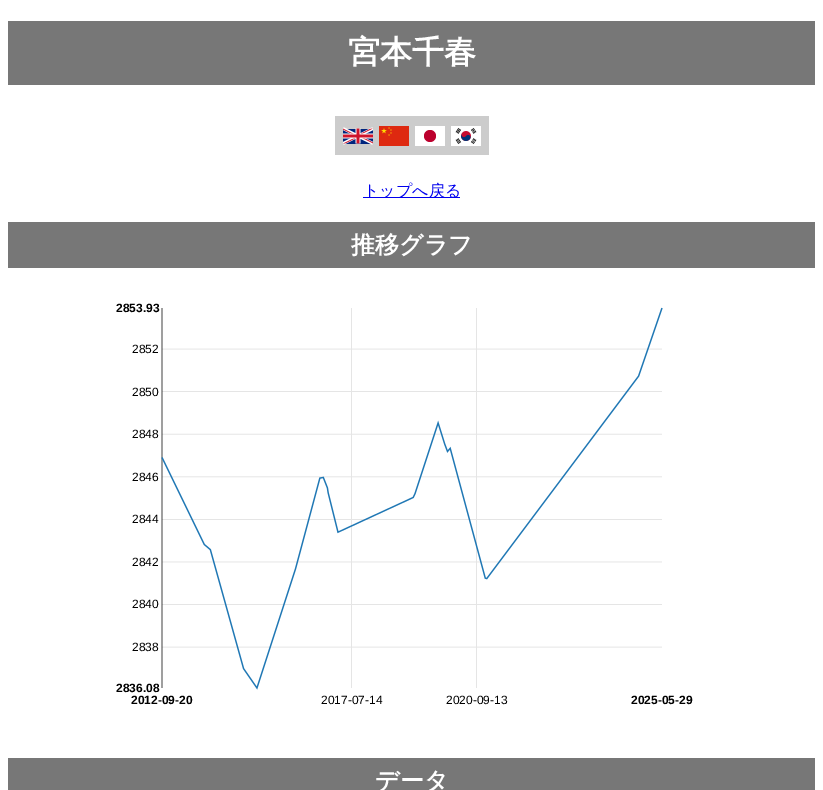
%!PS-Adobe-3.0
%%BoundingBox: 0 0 823 790
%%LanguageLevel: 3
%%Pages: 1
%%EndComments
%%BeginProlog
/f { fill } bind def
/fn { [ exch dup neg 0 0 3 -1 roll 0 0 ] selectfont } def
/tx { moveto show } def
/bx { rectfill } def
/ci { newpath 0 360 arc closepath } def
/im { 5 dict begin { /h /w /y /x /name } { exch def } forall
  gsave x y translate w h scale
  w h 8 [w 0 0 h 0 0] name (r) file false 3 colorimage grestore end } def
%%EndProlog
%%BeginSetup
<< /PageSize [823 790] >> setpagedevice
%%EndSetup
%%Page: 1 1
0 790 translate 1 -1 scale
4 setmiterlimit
1 setgray
0 0 823 790 bx
0.467 setgray
8 21 807 64 bx
/WenQuanYiZenHei-Bold 32 fn
1 setgray
(宮本千春) 348 63 tx
0.8 setgray
335 116 154 39 bx
(image0.raw) 343 127 30 18 im
(image1.raw) 379 126 30 20 im
1 setgray
415 126 30 20 bx
(image2.raw) 451 126 30 20 im
0.737 0 0.176 setrgbcolor
430 136 6 ci f
0 0 0.933 setrgbcolor
363 197 97 1 bx
/WenQuanYiZenHei-Medium 16 fn
(トップへ戻る) 363 196 tx
0.467 setgray
8 222 807 46 bx
/WenQuanYiZenHei-Bold 24 fn
1 setgray
(推移グラフ) 351 253 tx
(image3.raw) 161 307 502 383 im
/LiberationSans-Bold 12 fn
0 setgray
(2853.93) 116 312 tx
/LiberationSans-Regular 12 fn
(2852) 132 353 tx
(2850) 132 396 tx
(2848) 132 438 tx
(2846) 132 481 tx
(2844) 132 523 tx
(2842) 132 566 tx
(2840) 132 608 tx
(2838) 132 651 tx
/LiberationSans-Bold 12 fn
(2836.08) 116 692 tx
(2012-09-20) 131 704 tx
/LiberationSans-Regular 12 fn
(2017-07-14) 321 704 tx
(2020-09-13) 446 704 tx
/LiberationSans-Bold 12 fn
(2025-05-29) 631 704 tx
0.467 setgray
8 758 807 32 bx
/WenQuanYiZenHei-Bold 24 fn
1 setgray
(データ) 375 789 tx
showpage
%%EOF
